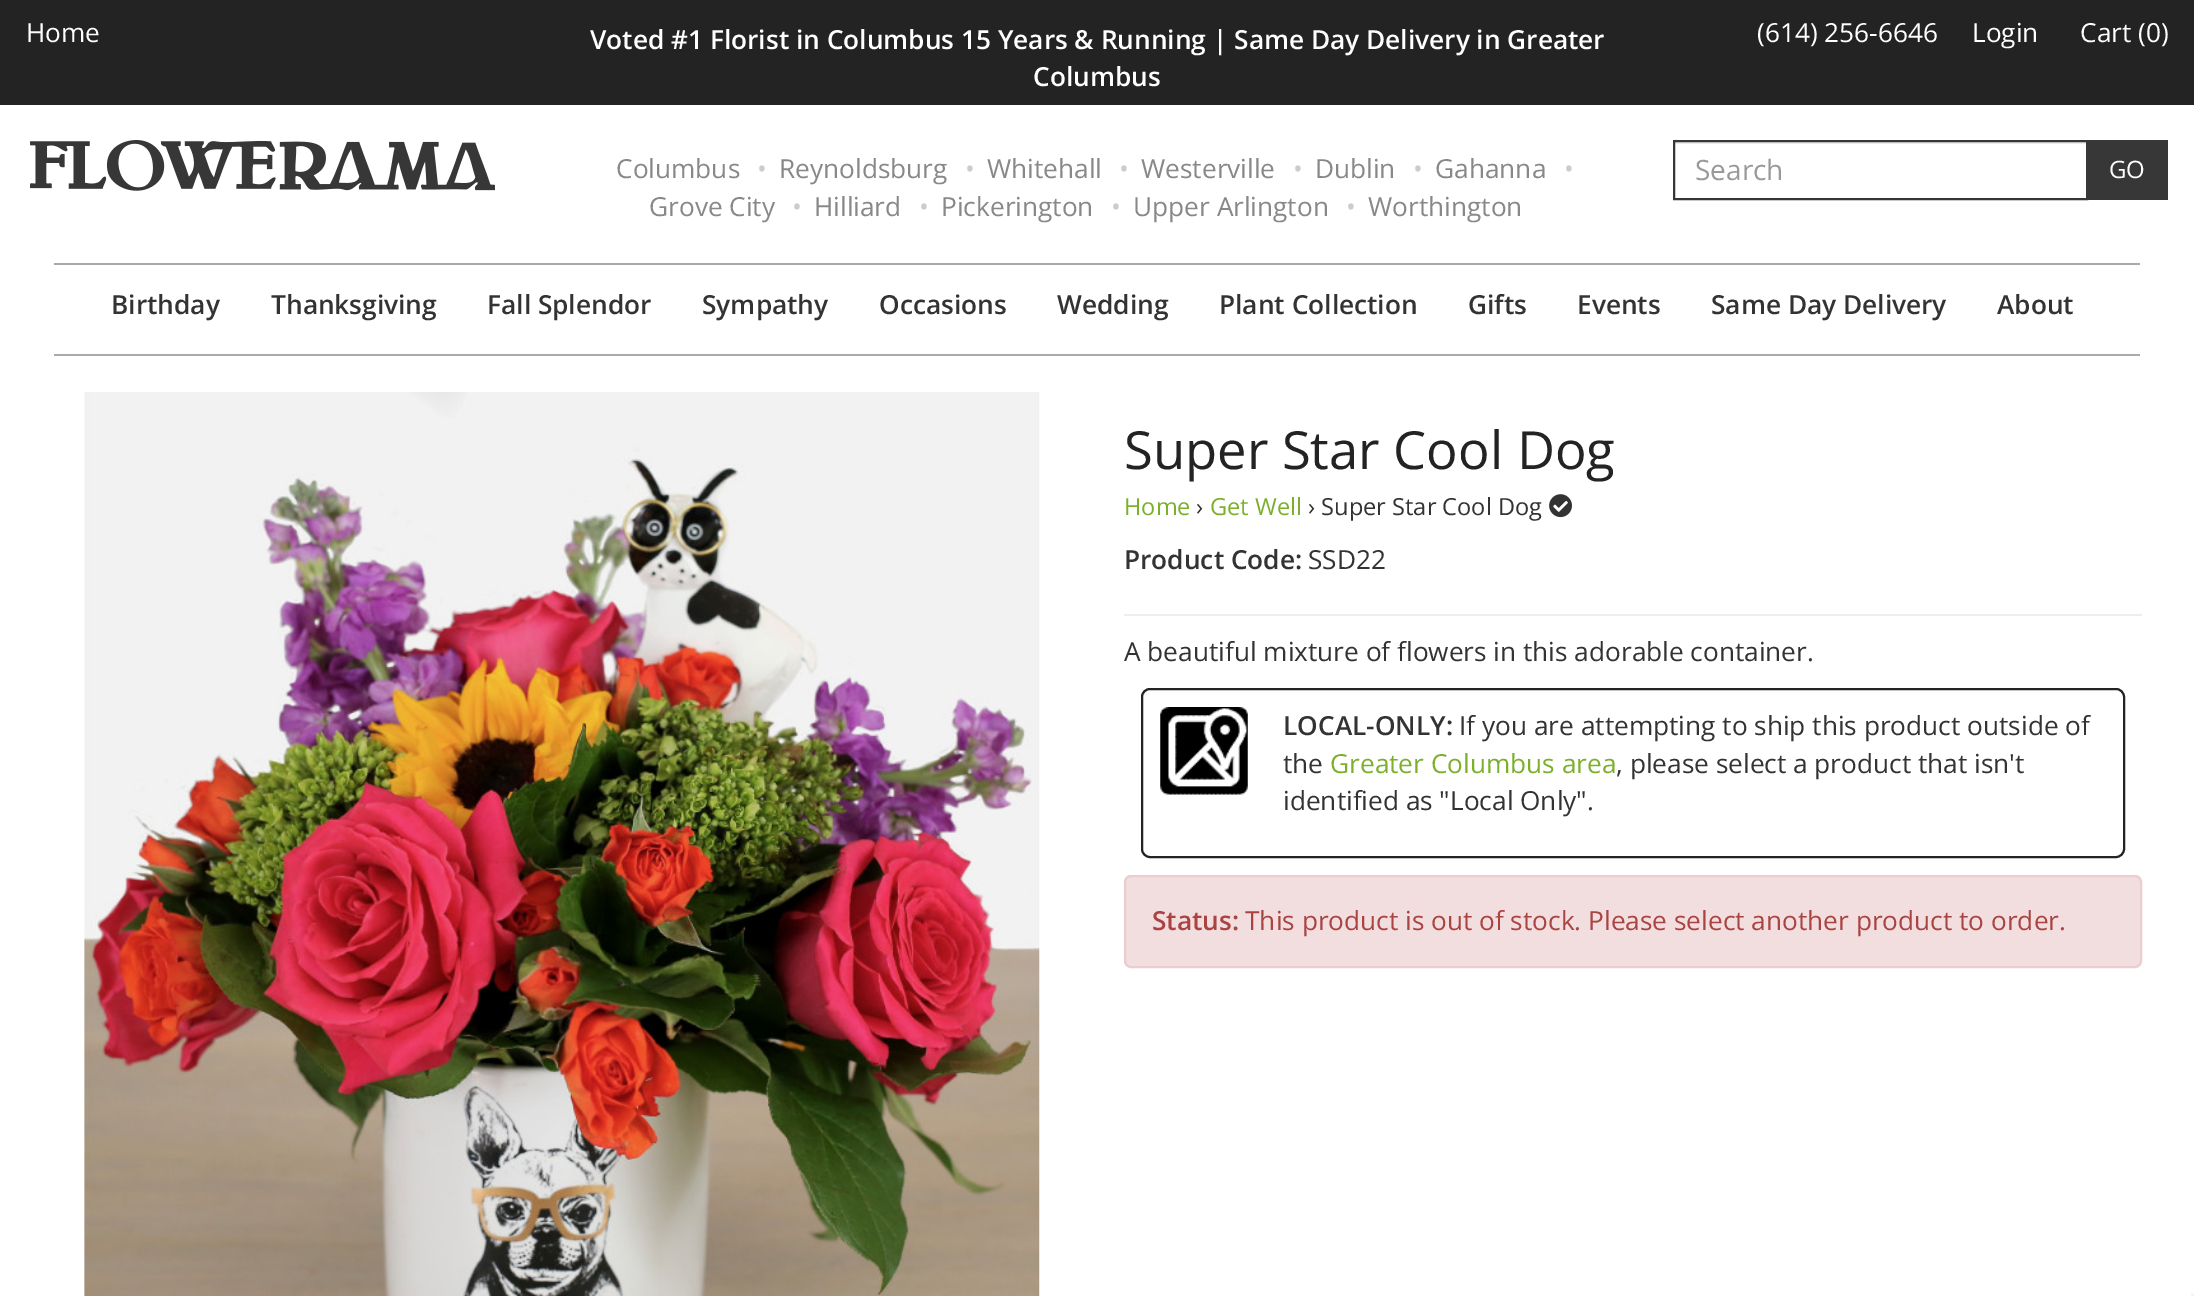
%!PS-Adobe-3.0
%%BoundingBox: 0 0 2194 1296
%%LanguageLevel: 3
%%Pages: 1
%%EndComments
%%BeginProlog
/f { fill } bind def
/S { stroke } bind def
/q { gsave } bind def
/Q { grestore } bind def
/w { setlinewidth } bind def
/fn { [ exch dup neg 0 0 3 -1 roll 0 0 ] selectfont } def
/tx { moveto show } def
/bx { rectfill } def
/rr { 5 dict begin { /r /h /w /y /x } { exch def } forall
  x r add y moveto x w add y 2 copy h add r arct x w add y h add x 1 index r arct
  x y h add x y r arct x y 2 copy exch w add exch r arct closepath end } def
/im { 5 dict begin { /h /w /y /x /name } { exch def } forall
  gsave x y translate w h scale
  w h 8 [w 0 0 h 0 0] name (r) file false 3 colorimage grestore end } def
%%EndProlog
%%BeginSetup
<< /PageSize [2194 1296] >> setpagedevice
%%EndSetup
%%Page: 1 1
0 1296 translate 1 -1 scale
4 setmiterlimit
1 setgray
0 0 2194 1296 bx
0.137 setgray
0 0 2194 105 bx
/OpenSans-Regular 26.25 fn
1 setgray
(Home) 26 42 tx
/OpenSans-SemiBold 26.25 fn
(Voted #1 Florist in Columbus 15 Years & Running | Same Day Delivery in Greater) 590 49 tx
(Columbus) 1033 86 tx
/OpenSans-Regular 26.25 fn
(\(614\) 256-6646) 1757 42 tx
(Login) 1972 42 tx
(Cart \(0\)) 2080 42 tx
(image0.raw) 30 140 465 51 im
0.533 setgray
(Columbus) 616 178 tx
0.8 setgray
(•) 757 178 tx
0.533 setgray
(Reynoldsburg) 779 178 tx
0.8 setgray
(•) 965 178 tx
0.533 setgray
(Whitehall) 987 178 tx
0.8 setgray
(•) 1119 178 tx
0.533 setgray
(Westerville) 1141 178 tx
0.8 setgray
(•) 1293 178 tx
0.533 setgray
(Dublin) 1315 178 tx
0.8 setgray
(•) 1413 178 tx
0.533 setgray
(Gahanna) 1435 178 tx
0.8 setgray
(•) 1564 178 tx
0.533 setgray
(Grove City) 649 216 tx
0.8 setgray
(•) 792 216 tx
0.533 setgray
(Hilliard) 814 216 tx
0.8 setgray
(•) 919 216 tx
0.533 setgray
(Pickerington) 941 216 tx
0.8 setgray
(•) 1111 216 tx
0.533 setgray
(Upper Arlington) 1133 216 tx
0.8 setgray
(•) 1346 216 tx
0.533 setgray
(Worthington) 1368 216 tx
0.925 setgray
1675 142 411 2 bx
0.216 setgray
2 w
1674 141 413 58 rectstroke
/OpenSans-Regular 28 fn
0.6 setgray
(Search) 1695 180 tx
0.216 setgray
2088 140 80 60 bx
/OpenSans-Regular 24 fn
1 setgray
(GO) 2109 178 tx
0.667 setgray
54 263 2086 2 bx
54 354 2086 2 bx
/OpenSans-SemiBold 26.25 fn
0.2 setgray
(Birthday) 111 314 tx
(Thanksgiving) 271 314 tx
(Fall Splendor) 487 314 tx
(Sympathy) 702 314 tx
(Occasions) 879 314 tx
(Wedding) 1057 314 tx
(Plant Collection) 1219 314 tx
(Gifts) 1468 314 tx
(Events) 1577 314 tx
(Same Day Delivery) 1711 314 tx
(About) 1997 314 tx
(image1.raw) 83 392 958 904 im
/OpenSans-Regular 52.5 fn
0.137 setgray
(Super Star Cool Dog) 1124 469 tx
/OpenSans-Regular 23.6 fn
0.486 0.69 0.173 setrgbcolor
(Home) 1124 515 tx
0.2 setgray
(›) 1196 515 tx
0.486 0.69 0.173 setrgbcolor
(Get Well) 1210 515 tx
0.2 setgray
(› Super Star Cool Dog) 1308 515 tx
(image2.raw) 1549 494 23 24 im
/OpenSans-SemiBold 26.25 fn
(Product Code:) 1124 569 tx
/OpenSans-Regular 26.25 fn
(SSD22) 1308 569 tx
0.933 setgray
1124 614 1018 2 bx
0.2 setgray
(A beautiful mixture of flowers in this adorable container.) 1124 661 tx
0.137 setgray
1142 689 982 168 8 rr S
(image3.raw) 1160 707 88 88 im
/OpenSans-SemiBold 26.25 fn
0.2 setgray
(LOCAL-ONLY:) 1283 735 tx
/OpenSans-Regular 26.25 fn
(If you are attempting to ship this product outside of) 1459 735 tx
(the) 1283 773 tx
0.486 0.69 0.173 setrgbcolor
(Greater Columbus area) 1330 773 tx
0.2 setgray
(, please select a product that isn't) 1616 773 tx
(identified as "Local Only".) 1283 810 tx
0.949 0.871 0.871 setrgbcolor
1125 876 1016 91 6 rr q f Q
0.922 0.8 0.82 setrgbcolor
S
/OpenSans-SemiBold 26.25 fn
0.663 0.267 0.259 setrgbcolor
(Status:) 1152 930 tx
/OpenSans-Regular 26.25 fn
(This product is out of stock. Please select another product to order.) 1245 930 tx
0.961 setgray
2191 1293 3 3 bx
showpage
%%EOF
